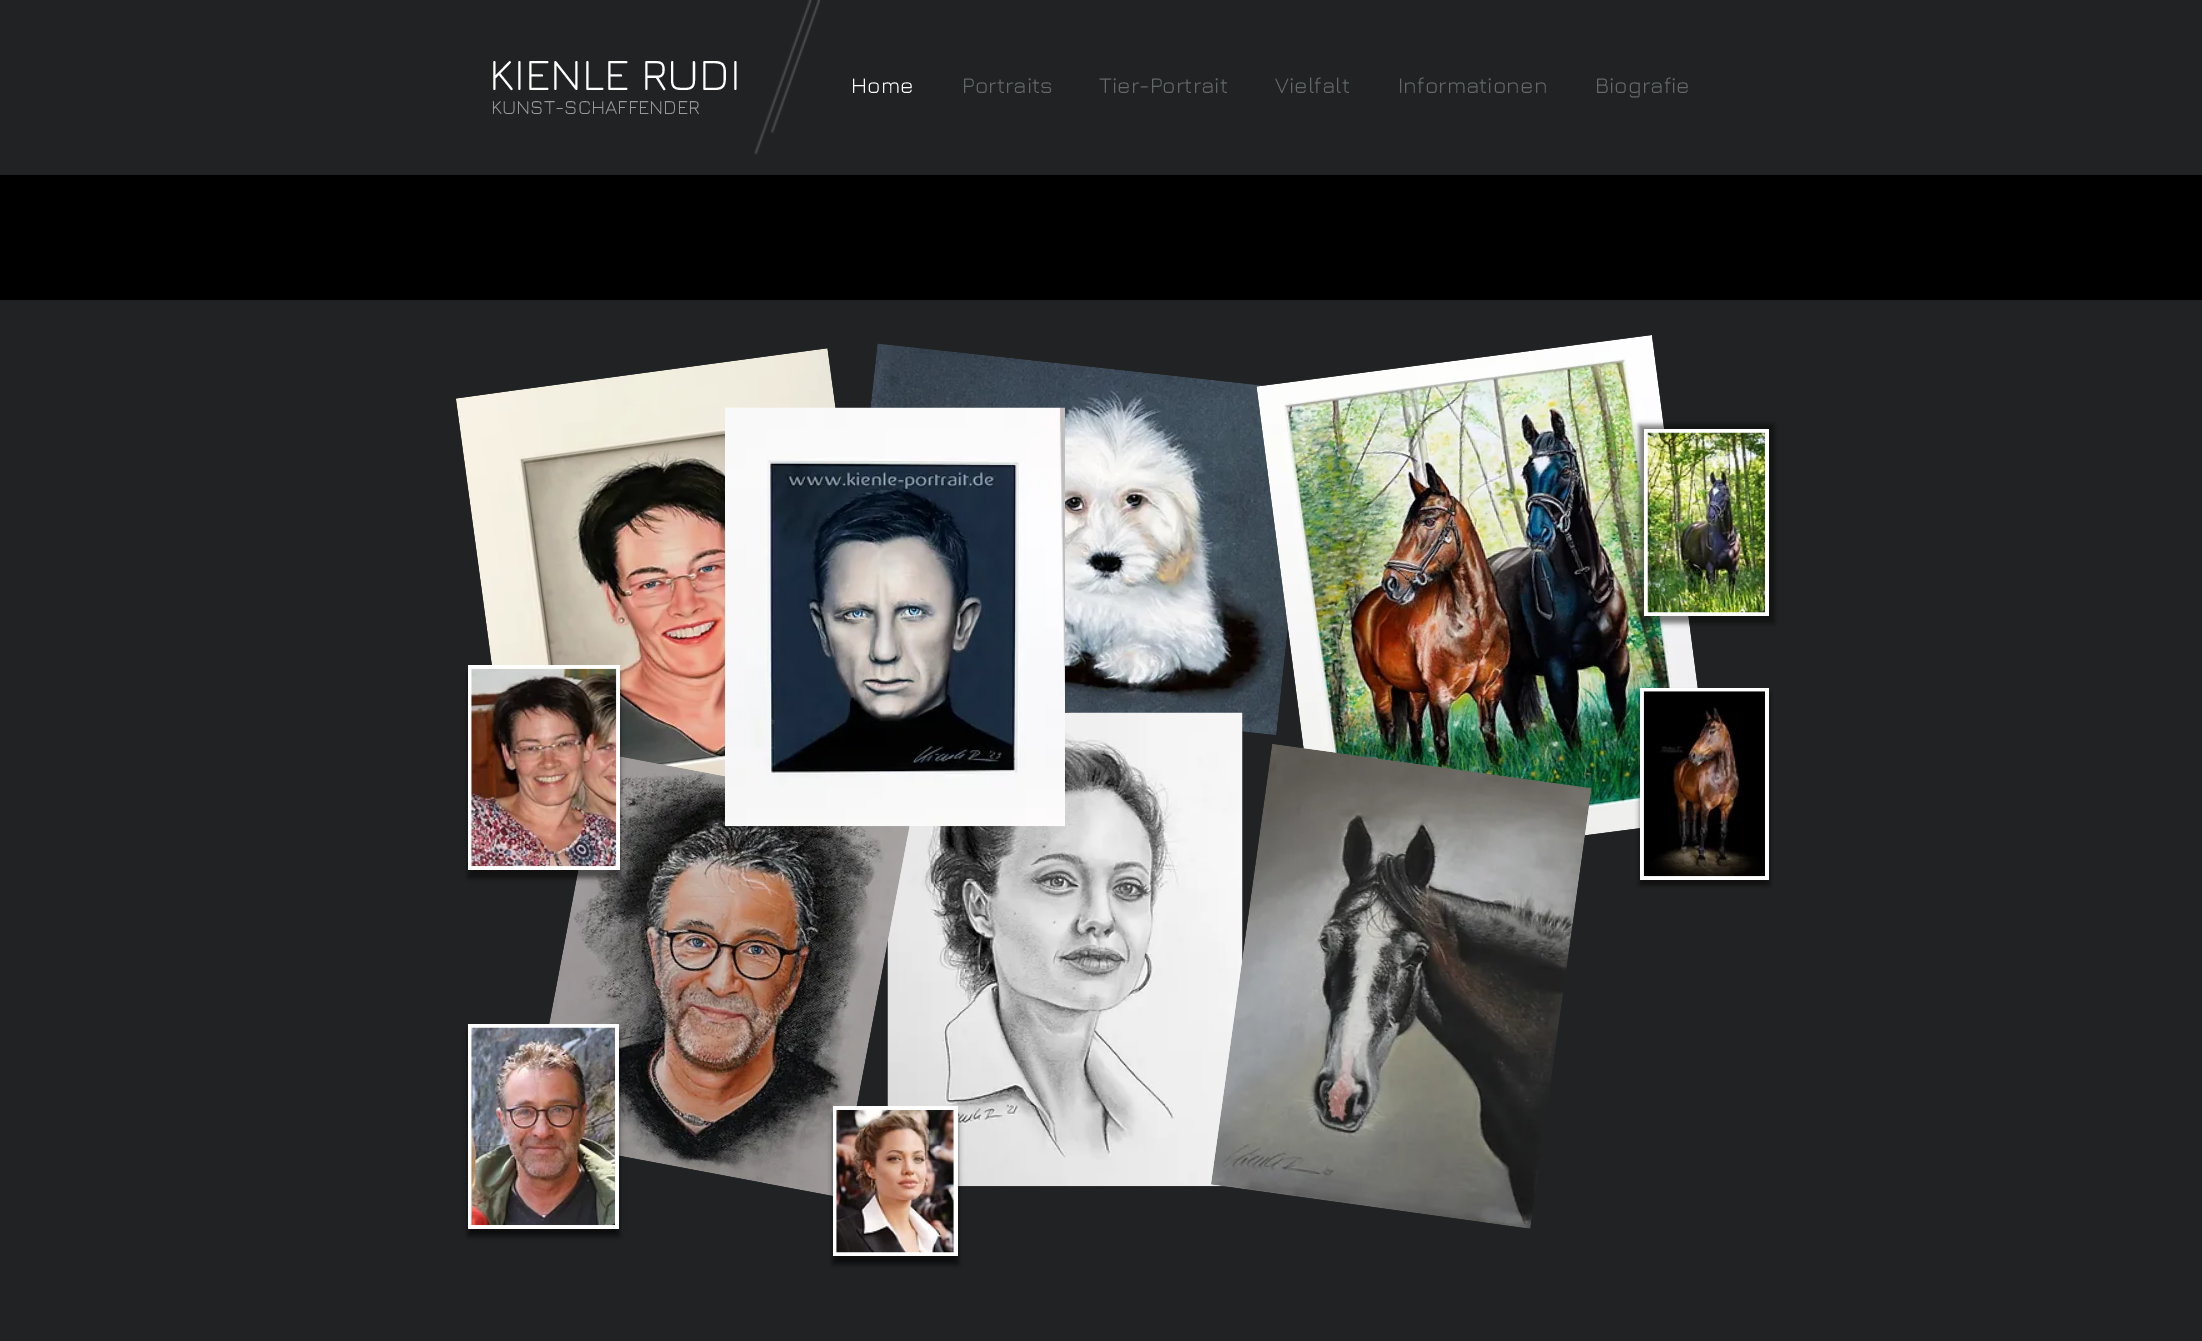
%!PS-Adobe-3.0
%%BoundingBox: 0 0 2202 1341
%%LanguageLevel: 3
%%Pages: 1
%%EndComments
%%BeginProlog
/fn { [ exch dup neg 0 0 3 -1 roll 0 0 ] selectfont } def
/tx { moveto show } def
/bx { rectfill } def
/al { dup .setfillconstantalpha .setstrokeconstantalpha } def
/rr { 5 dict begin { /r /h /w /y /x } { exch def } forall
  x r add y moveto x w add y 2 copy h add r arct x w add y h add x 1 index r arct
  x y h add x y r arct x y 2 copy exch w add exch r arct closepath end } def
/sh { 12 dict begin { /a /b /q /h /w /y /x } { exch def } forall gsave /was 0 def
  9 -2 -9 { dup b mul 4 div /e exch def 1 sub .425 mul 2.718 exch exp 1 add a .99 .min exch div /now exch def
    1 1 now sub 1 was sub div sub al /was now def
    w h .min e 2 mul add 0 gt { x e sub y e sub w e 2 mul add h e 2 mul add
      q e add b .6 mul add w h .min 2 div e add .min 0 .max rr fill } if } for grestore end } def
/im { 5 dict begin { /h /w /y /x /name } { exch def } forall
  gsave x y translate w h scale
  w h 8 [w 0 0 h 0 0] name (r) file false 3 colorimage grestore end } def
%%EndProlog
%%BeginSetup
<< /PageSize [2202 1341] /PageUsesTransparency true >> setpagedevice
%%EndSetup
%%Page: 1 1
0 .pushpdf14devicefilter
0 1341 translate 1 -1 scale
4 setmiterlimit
0.125 0.133 0.137 setrgbcolor
0 0 2202 1341 bx
/Jura-Regular 45 fn
1 setgray
(KIENLE RUDI) 489 90 tx
(image0.raw) 754 0 66 155 im
/Jura-Regular 22.5 fn
(Home) 851 93 tx
0.384 0.408 0.42 setrgbcolor
(Portraits) 962 93 tx
(Tier-Portrait) 1099 93 tx
(Vielfalt) 1275 93 tx
(Informationen) 1398 93 tx
(Biografie) 1595 93 tx
/Jura-Regular 20 fn
0.588 0.604 0.612 setrgbcolor
(KUNST-SCHAFFENDER) 491 114 tx
0 setgray
0 175 2202 125 bx
(image1.raw) 456 348 380 429 im
(image2.raw) 870 343 418 392 im
(image3.raw) 1256 335 442 501 im
(image8.raw) 887 712 356 475 im
(image7.raw) 549 756 361 440 im
(image4.raw) 725 407 340 420 im
1639 425 135 198 0 2.5 0.49 sh
1 setgray
1644 429 125 187 bx
(image5.raw) 1647 432 118 181 im
0 setgray
468 673 152 205 0 2.5 0.52 sh
1 setgray
468 665 152 205 bx
(image6.raw) 471 668 146 199 im
(image9.raw) 1211 744 381 485 im
0 setgray
1640 693 129 192 0 2.5 0.53 sh
1 setgray
1640 688 129 192 bx
(image10.raw) 1643 691 122 186 im
0 setgray
468 1031 151 205 0 2.5 0.58 sh
1 setgray
468 1024 151 205 bx
(image11.raw) 471 1027 144 198 im
0 setgray
833 1114 125 150 0 2.5 0.59 sh
1 setgray
833 1106 125 150 bx
(image12.raw) 836 1110 118 143 im
.poppdf14devicefilter showpage
%%EOF
